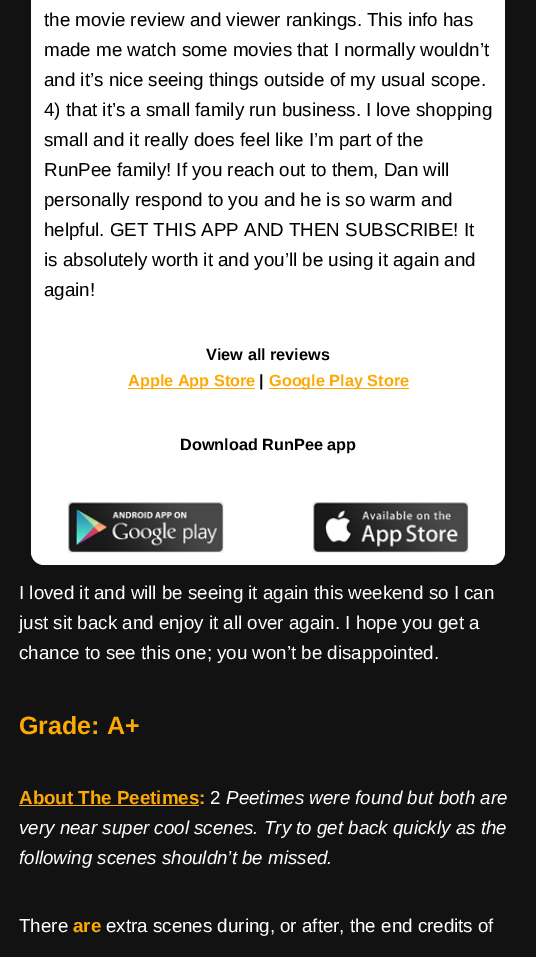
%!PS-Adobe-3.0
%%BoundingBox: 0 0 536 957
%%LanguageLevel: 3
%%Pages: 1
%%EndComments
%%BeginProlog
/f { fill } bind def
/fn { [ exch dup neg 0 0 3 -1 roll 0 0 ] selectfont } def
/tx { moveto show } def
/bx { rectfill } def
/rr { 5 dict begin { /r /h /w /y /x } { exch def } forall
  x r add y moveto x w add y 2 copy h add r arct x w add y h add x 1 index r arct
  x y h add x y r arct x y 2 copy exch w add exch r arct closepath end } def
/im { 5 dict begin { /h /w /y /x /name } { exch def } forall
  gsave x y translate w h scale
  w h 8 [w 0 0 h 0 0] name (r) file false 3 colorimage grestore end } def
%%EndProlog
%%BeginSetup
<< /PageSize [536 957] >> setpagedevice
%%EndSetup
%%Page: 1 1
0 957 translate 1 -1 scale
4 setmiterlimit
0.071 setgray
0 0 536 957 bx
1 setgray
31 -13 474 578 13 rr f
/LiberationSans-Regular 18.75 fn
0 setgray
(the movie review and viewer rankings. This info has) 44 26 tx
(made me watch some movies that I normally wouldn’t) 44 56 tx
(and it’s nice seeing things outside of my usual scope.) 44 86 tx
(4\) that it’s a small family run business. I love shopping) 44 116 tx
(small and it really does feel like I’m part of the) 44 146 tx
(RunPee family! If you reach out to them, Dan will) 44 176 tx
(personally respond to you and he is so warm and) 44 206 tx
(helpful. GET THIS APP AND THEN SUBSCRIBE! It) 44 236 tx
(is absolutely worth it and you’ll be using it again and) 44 266 tx
(again!) 44 296 tx
/LiberationSans-Bold 16.25 fn
(View all reviews) 206 360 tx
0.988 0.663 0.02 setrgbcolor
128 388 127 1 bx
(Apple App Store) 128 386 tx
0 setgray
(|) 259 386 tx
0.988 0.663 0.02 setrgbcolor
269 388 140 1 bx
(Google Play Store) 269 386 tx
0 setgray
(Download RunPee app) 180 450 tx
(image0.raw) 67 501 157 52 im
(image1.raw) 312 501 157 52 im
/LiberationSans-Regular 18.75 fn
1 setgray
(I loved it and will be seeing it again this weekend so I can) 19 599 tx
(just sit back and enjoy it all over again. I hope you get a) 19 629 tx
(chance to see this one; you won’t be disappointed.) 19 659 tx
/LiberationSans-Bold 25 fn
0.988 0.663 0.02 setrgbcolor
(Grade: A+) 19 734 tx
/LiberationSans-Bold 18.75 fn
(About The Peetimes:) 19 804 tx
19 805 180 1 bx
/LiberationSans-Regular 18.75 fn
1 setgray
(2) 210 804 tx
/LiberationSans-Italic 18.75 fn
(Peetimes were found but both are) 226 804 tx
(very near super cool scenes. Try to get back quickly as the) 19 834 tx
(following scenes shouldn’t be missed.) 19 864 tx
/LiberationSans-Regular 18.75 fn
(There) 19 932 tx
/LiberationSans-Bold 18.75 fn
0.988 0.663 0.02 setrgbcolor
(are) 73 932 tx
/LiberationSans-Regular 18.75 fn
1 setgray
(extra scenes during, or after, the end credits of) 106 932 tx
showpage
%%EOF
